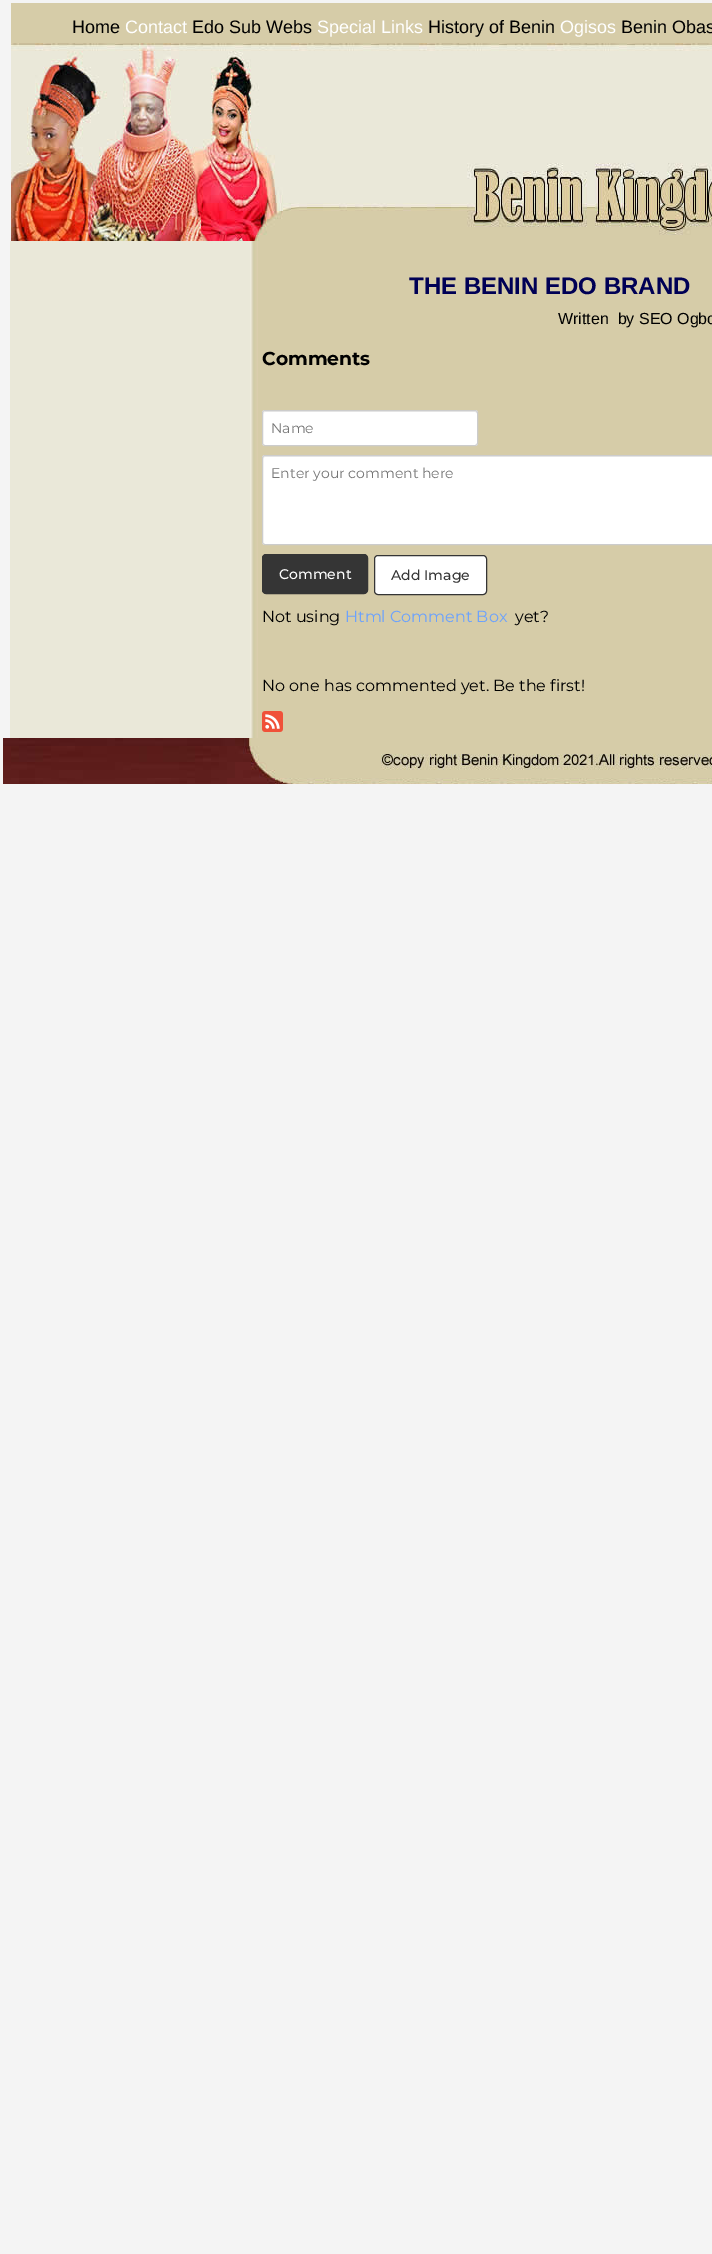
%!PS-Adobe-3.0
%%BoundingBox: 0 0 712 2254
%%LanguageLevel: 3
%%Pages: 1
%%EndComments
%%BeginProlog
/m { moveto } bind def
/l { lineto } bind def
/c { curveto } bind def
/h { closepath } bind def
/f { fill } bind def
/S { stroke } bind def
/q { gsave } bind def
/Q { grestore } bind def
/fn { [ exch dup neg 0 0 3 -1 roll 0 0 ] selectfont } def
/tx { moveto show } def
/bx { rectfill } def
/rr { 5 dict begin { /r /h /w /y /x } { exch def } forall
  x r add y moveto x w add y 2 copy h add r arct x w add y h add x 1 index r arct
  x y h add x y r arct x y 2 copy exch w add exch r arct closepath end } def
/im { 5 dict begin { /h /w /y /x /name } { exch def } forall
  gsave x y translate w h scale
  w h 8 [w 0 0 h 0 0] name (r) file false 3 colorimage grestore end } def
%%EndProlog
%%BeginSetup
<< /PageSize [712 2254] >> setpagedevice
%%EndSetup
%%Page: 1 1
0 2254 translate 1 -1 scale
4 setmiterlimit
0.957 setgray
0 0 712 2254 bx
(image0.raw) 11 3 701 238 im
/LiberationSans-Regular 18 fn
0 setgray
(Home) 72 33 tx
1 setgray
(Contact) 125 33 tx
0 setgray
(Edo Sub Webs) 192 33 tx
1 setgray
(Special Links) 317 33 tx
0 setgray
(History of Benin) 428 33 tx
1 setgray
(Ogisos) 560 33 tx
0 setgray
(Benin Obas) 621 33 tx
(image1.raw) 10 241 702 497 im
/LiberationSans-Bold 24 fn
0 0 0.333 setrgbcolor
(THE BENIN EDO BRAND) 409 294 tx
/LiberationSans-Regular 16 fn
0 setgray
(Written  by SEO Ogbo) 558 324 tx
/Montserrat-Bold 18.75 fn
(Comments) 262 365 tx
1 setgray
262 410 216 36 3 rr f
0.929 setgray
265 412 m 475 412 l 476 412 477 413 477 414 c 477 413 477 411 475 411 c 265 411 l 264 412 l 263 414 l 263 413 264 412 265 412 c h f
0.8 setgray
262.5 410.5 215 35 2.5 rr S
/Montserrat-Regular 14 fn
0.459 setgray
(Name) 271 433 tx
1 setgray
262 455 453 90 3 rr f
0.929 setgray
265 457 m 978 457 l 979 457 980 458 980 459 c 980 458 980 456 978 456 c 265 456 l 263 456 263 458 263 459 c 263 458 264 457 265 457 c h f
0.8 setgray
262.5 455.5 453 89 2.5 rr S
0.459 setgray
(Enter your comment here) 271 478 tx
0.208 setgray
262.5 554.5 105 39 3.5 rr q f Q
S
/Montserrat-Medium 14 fn
1 setgray
(Comment) 279 579 tx
374.5 555.5 112 39 3.5 rr q f Q
0.208 setgray
S
(Add Image) 391 580 tx
/Montserrat-Regular 16 fn
0 setgray
(Not using) 262 622 tx
0.424 0.635 0.992 setrgbcolor
(Html Comment Box) 345 622 tx
0 setgray
(yet?) 515 622 tx
(No one has commented yet. Be the first!) 262 691 tx
(image2.raw) 262 711 21 21 im
(image3.raw) 3 738 709 46 im
(image4.raw) 381 754 331 16 im
showpage
%%EOF
